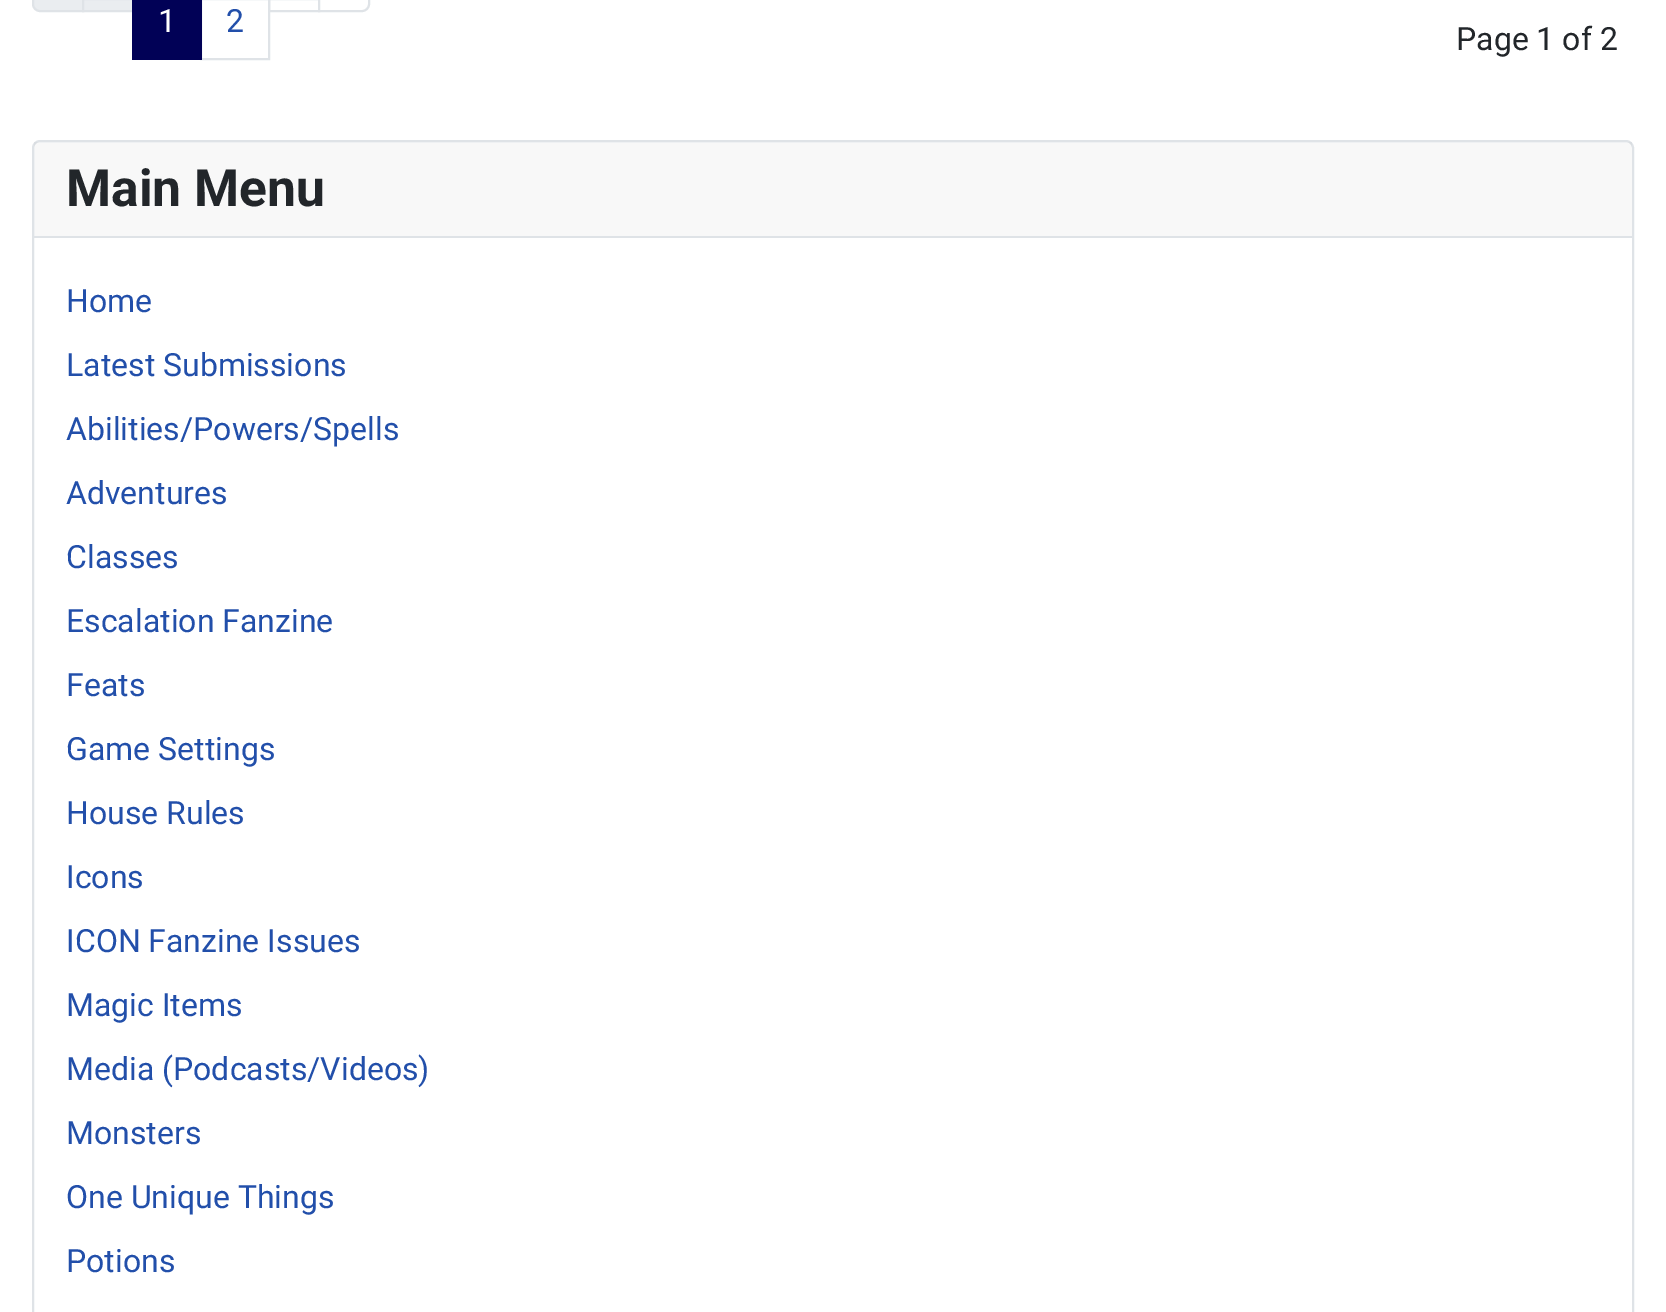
%!PS-Adobe-3.0
%%BoundingBox: 0 0 1666 1312
%%LanguageLevel: 3
%%Pages: 1
%%EndComments
%%BeginProlog
/m { moveto } bind def
/l { lineto } bind def
/c { curveto } bind def
/h { closepath } bind def
/f { fill } bind def
/S { stroke } bind def
/q { gsave } bind def
/Q { grestore } bind def
/w { setlinewidth } bind def
/fn { [ exch dup neg 0 0 3 -1 roll 0 0 ] selectfont } def
/tx { moveto show } def
/bx { rectfill } def
/al { dup .setfillconstantalpha .setstrokeconstantalpha } def
/rr { 5 dict begin { /r /h /w /y /x } { exch def } forall
  x r add y moveto x w add y 2 copy h add r arct x w add y h add x 1 index r arct
  x y h add x y r arct x y 2 copy exch w add exch r arct closepath end } def
%%EndProlog
%%BeginSetup
<< /PageSize [1666 1312] /PageUsesTransparency true >> setpagedevice
%%EndSetup
%%Page: 1 1
0 .pushpdf14devicefilter
0 1312 translate 1 -1 scale
4 setmiterlimit
1 setgray
0 0 1666 1312 bx
0.918 0.929 0.941 setrgbcolor
40 -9 m 83 -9 l 83 11 l 40 11 l 36 11 33 8 33 4 c 33 -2 l 33 -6 36 -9 40 -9 c h q f Q
0.875 0.89 0.906 setrgbcolor
2 w
S
0.918 0.929 0.941 setrgbcolor
83 -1 m 133 -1 l 133 11 l 83 11 l h q f Q
0.875 0.89 0.906 setrgbcolor
S
201 -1 68 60 rectstroke
269 -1 50 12 rectstroke
1 setgray
319 -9 m 362 -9 l 366 -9 369 -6 369 -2 c 369 4 l 369 8 366 11 362 11 c 319 11 l h q f Q
0.875 0.89 0.906 setrgbcolor
S
0.004 0.004 0.337 setrgbcolor
132 0 70 60 bx
/Roboto-Regular 32 fn
1 setgray
(1) 158 32 tx
0.133 0.31 0.667 setrgbcolor
(2) 226 32 tx
0.133 0.149 0.165 setrgbcolor
(Page 1 of 2) 1456 50 tx
0.875 0.89 0.906 setrgbcolor
33 141 1600 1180 7 rr S
0.03 al
0.133 0.149 0.165 setrgbcolor
34 142 1598 94 bx
1 al
0.875 0.89 0.906 setrgbcolor
34 236 1598 2 bx
/Roboto-Bold 51.5 fn
0.133 0.149 0.165 setrgbcolor
(Main Menu) 66 206 tx
/Roboto-Regular 32 fn
0.133 0.31 0.667 setrgbcolor
(Home) 66 312 tx
(Latest Submissions) 66 376 tx
(Abilities/Powers/Spells) 66 440 tx
(Adventures) 66 504 tx
(Classes) 66 568 tx
(Escalation Fanzine) 66 632 tx
(Feats) 66 696 tx
(Game Settings) 66 760 tx
(House Rules) 66 824 tx
(Icons) 66 888 tx
(ICON Fanzine Issues) 66 952 tx
(Magic Items) 66 1016 tx
(Media \(Podcasts/Videos\)) 66 1080 tx
(Monsters) 66 1144 tx
(One Unique Things) 66 1208 tx
(Potions) 66 1272 tx
.poppdf14devicefilter showpage
%%EOF
